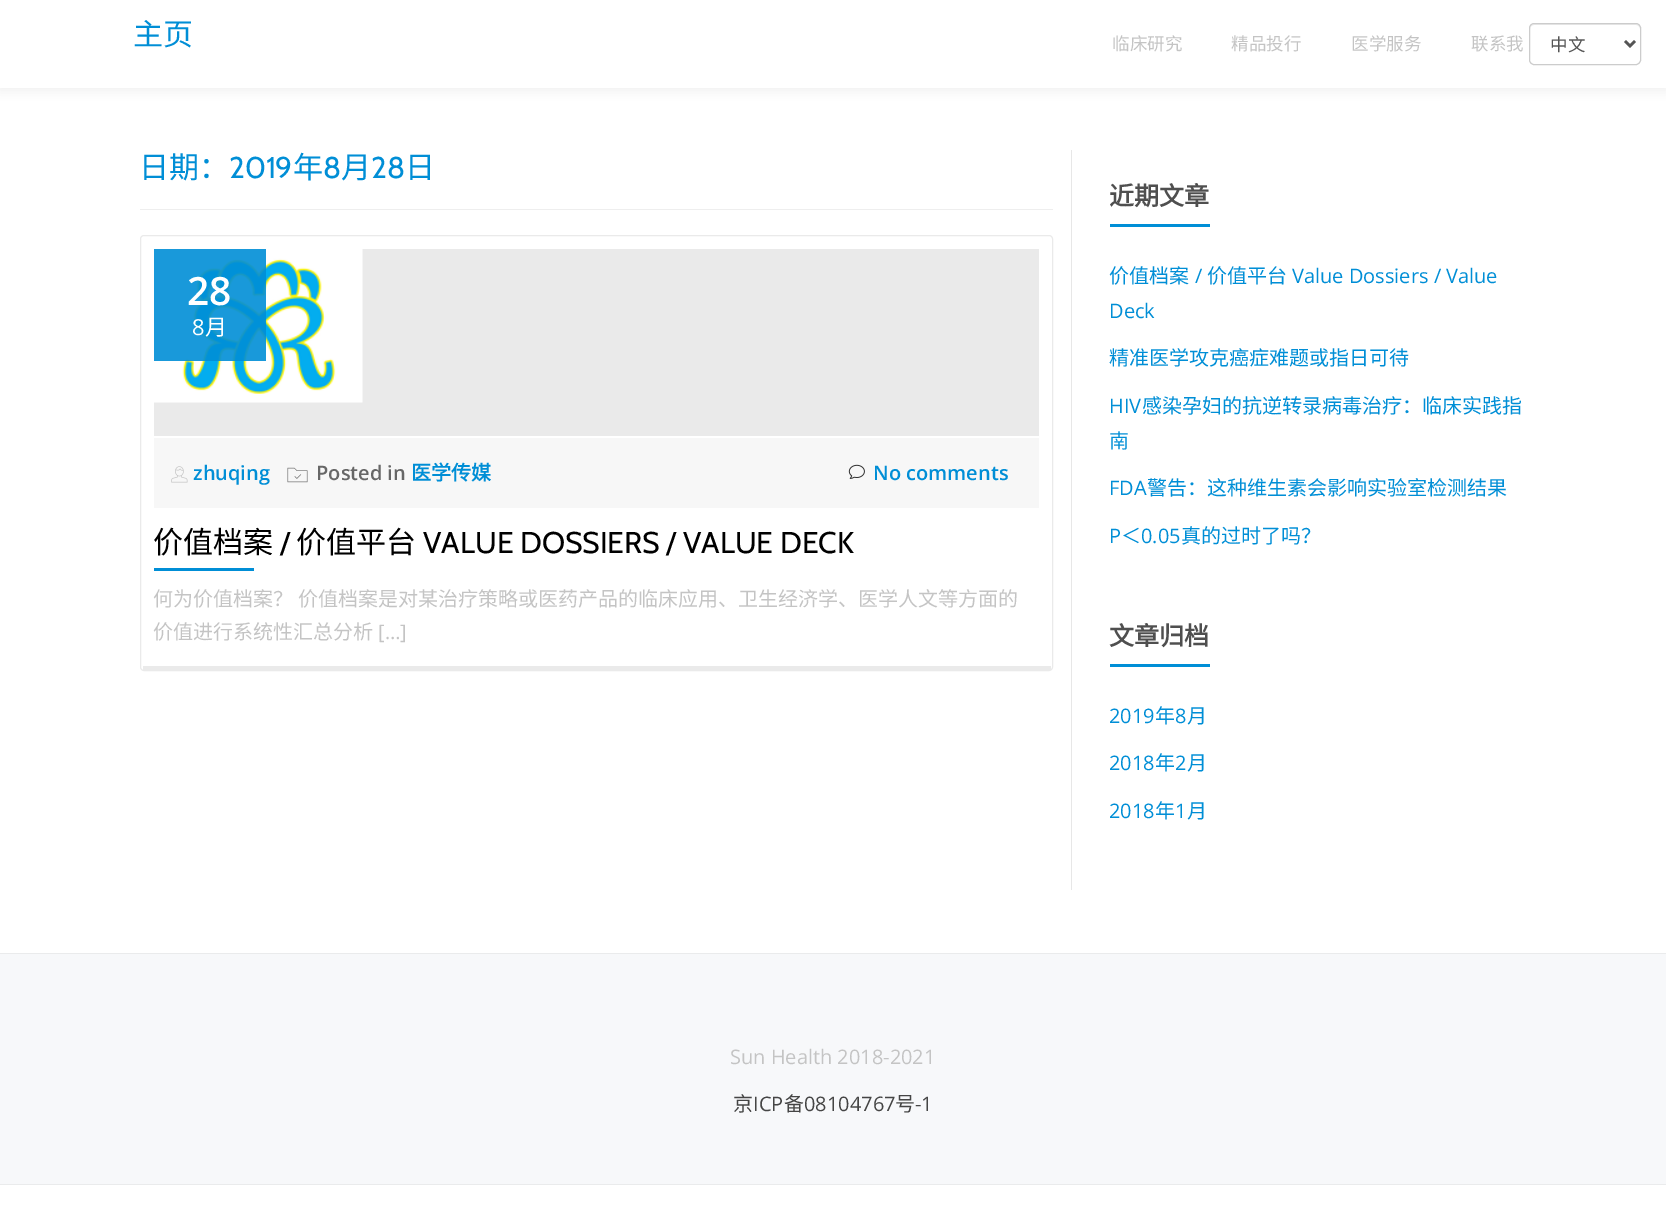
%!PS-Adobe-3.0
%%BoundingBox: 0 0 1666 1227
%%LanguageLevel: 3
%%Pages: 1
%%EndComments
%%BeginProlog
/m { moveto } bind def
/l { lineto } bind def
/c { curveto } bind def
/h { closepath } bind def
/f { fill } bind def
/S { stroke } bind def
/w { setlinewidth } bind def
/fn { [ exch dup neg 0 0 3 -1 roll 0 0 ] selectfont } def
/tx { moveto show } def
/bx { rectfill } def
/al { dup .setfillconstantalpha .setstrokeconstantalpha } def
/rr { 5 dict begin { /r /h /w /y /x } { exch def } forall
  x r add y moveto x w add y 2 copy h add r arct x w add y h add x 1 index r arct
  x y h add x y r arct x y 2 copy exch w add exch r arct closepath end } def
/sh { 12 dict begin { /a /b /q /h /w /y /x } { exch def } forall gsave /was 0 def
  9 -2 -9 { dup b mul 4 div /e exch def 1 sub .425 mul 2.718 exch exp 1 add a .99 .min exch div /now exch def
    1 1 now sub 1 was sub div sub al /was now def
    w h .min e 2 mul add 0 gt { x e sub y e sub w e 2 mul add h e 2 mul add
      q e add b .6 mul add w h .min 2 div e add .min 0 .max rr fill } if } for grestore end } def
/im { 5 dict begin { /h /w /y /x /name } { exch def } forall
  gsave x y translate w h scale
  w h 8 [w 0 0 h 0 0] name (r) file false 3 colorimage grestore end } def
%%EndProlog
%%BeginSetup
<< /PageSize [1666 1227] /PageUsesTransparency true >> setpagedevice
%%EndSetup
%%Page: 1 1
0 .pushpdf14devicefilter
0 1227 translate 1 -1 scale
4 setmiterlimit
1 setgray
0 0 1666 1227 bx
0.196 setgray
0 3 1666 87 0 5 0.08 sh
1 setgray
0 0 1666 88 bx
/NotoSansCJKSC-Regular 30 fn
0 0.557 0.839 setrgbcolor
(主页) 133 45 tx
/NotoSansCJKSC-Regular 17.5 fn
0.769 setgray
(临床研究) 1112 50 tx
(精品投行) 1231 50 tx
(医学服务) 1351 50 tx
(联系我) 1471 50 tx
0.925 setgray
1534 25 m 1636 25 l 1638 25 1640 27 1640 29 c 1640 20 1623 24 1619 24 c 1551 24 l 1547 24 1530 20 1530 29 c 1530 27 1532 25 1534 25 c h f
0.8 setgray
1529.5 23.5 111 41 4.5 rr S
0.333 setgray
2.5 w
1625 41 m 1630 46 l 1635 41 l S
(中文) 1550 51 tx
0.933 setgray
140 209 913 1 bx
/NotoSansCJKSC-Regular 30 fn
0 0.557 0.839 setrgbcolor
(日期：) 139 178 tx
/Cabin-Regular 30 fn
(2019) 229 178 tx
/NotoSansCJKSC-Regular 30 fn
(年) 293 178 tx
/Cabin-Regular 30 fn
(8) 323 178 tx
/NotoSansCJKSC-Regular 30 fn
(月) 341 178 tx
/Cabin-Regular 30 fn
(28) 371 178 tx
/NotoSansCJKSC-Regular 30 fn
(日) 405 178 tx
0.918 setgray
1 w
140.5 235.5 912 435 3.5 rr S
143 666 908 4 bx
154 249 885 187 bx
(image0.raw) 154 249 209 154 im
0.9 al
0 0.557 0.839 setrgbcolor
154 249 112 112 bx
/OpenSans-SemiBold 39 fn
1 al
1 setgray
(28) 187 305 tx
/OpenSans-Regular 22 fn
(8) 192 335 tx
/NotoSansCJKSC-Regular 22 fn
(月) 205 335 tx
0.969 setgray
154 438 885 70 bx
(image1.raw) 171 466 17 17 im
/OpenSans-SemiBold 20 fn
0 0.557 0.839 setrgbcolor
(zhuqing) 193 480 tx
(image2.raw) 287 467 21 16 im
0.404 setgray
(Posted in) 316 480 tx
/NotoSansCJKSC-Bold 20 fn
0 0.557 0.839 setrgbcolor
(医学传媒) 411 480 tx
(image3.raw) 848 464 17 15 im
/OpenSans-SemiBold 20 fn
(No comments) 873 480 tx
/NotoSansCJKSC-Regular 30 fn
0 setgray
(价值档案) 153 553 tx
/Cabin-Regular 30 fn
(/) 280 553 tx
/NotoSansCJKSC-Regular 30 fn
(价值平台) 296 553 tx
/Cabin-Regular 30 fn
(VALUE DOSSIERS / VALUE DECK) 423 553 tx
0 0.557 0.839 setrgbcolor
154 568 100 3 bx
/NotoSansCJKSC-Regular 20 fn
0.769 setgray
153 606 m 1 0 32 (何为价值档案？ 价值档案是对某治疗策略或医药产品的临床应用、卫生经济学、医学人文等方面的) widthshow
(价值进行系统性汇总分析) 153 639 tx
/OpenSans-Regular 20 fn
([…]) 378 639 tx
0.906 setgray
1071 150 1 740 bx
/NotoSansCJKSC-Bold 25 fn
0.31 setgray
(近期文章) 1109 205 tx
0 0.557 0.839 setrgbcolor
1110 224 100 3 bx
/NotoSansCJKSC-Regular 20 fn
(价值档案) 1109 283 tx
/OpenSans-Regular 20 fn
(/) 1195 283 tx
/NotoSansCJKSC-Regular 20 fn
(价值平台) 1207 283 tx
/OpenSans-Regular 20 fn
(Value Dossiers / Value) 1292 283 tx
(Deck) 1109 318 tx
/NotoSansCJKSC-Regular 20 fn
(精准医学攻克癌症难题或指日可待) 1109 365 tx
/OpenSans-Regular 20 fn
(HIV) 1109 413 tx
/NotoSansCJKSC-Regular 20 fn
(感染孕妇的抗逆转录病毒治疗：临床实践指) 1142 413 tx
(南) 1109 448 tx
/OpenSans-Regular 20 fn
(FDA) 1109 495 tx
/NotoSansCJKSC-Regular 20 fn
(警告：这种维生素会影响实验室检测结果) 1147 495 tx
/OpenSans-Regular 20 fn
(P) 1109 543 tx
/NotoSansCJKSC-Regular 20 fn
(＜) 1121 543 tx
/OpenSans-Regular 20 fn
(0.05) 1141 543 tx
/NotoSansCJKSC-Regular 20 fn
(真的过时了吗？) 1181 543 tx
/NotoSansCJKSC-Bold 25 fn
0.31 setgray
(文章归档) 1109 645 tx
0 0.557 0.839 setrgbcolor
1110 664 100 3 bx
/OpenSans-Regular 20 fn
(2019) 1109 723 tx
/NotoSansCJKSC-Regular 20 fn
(年) 1155 723 tx
/OpenSans-Regular 20 fn
(8) 1175 723 tx
/NotoSansCJKSC-Regular 20 fn
(月) 1187 723 tx
/OpenSans-Regular 20 fn
(2018) 1109 770 tx
/NotoSansCJKSC-Regular 20 fn
(年) 1155 770 tx
/OpenSans-Regular 20 fn
(2) 1175 770 tx
/NotoSansCJKSC-Regular 20 fn
(月) 1187 770 tx
/OpenSans-Regular 20 fn
(2018) 1109 818 tx
/NotoSansCJKSC-Regular 20 fn
(年) 1155 818 tx
/OpenSans-Regular 20 fn
(1) 1175 818 tx
/NotoSansCJKSC-Regular 20 fn
(月) 1187 818 tx
0.969 0.973 0.98 setrgbcolor
0 954 1666 230 bx
0.918 0.922 0.925 setrgbcolor
0 953 1666 1 bx
0 1184 1666 1 bx
/OpenSans-Regular 20 fn
0.769 setgray
(Sun Health 2018-2021) 730 1064 tx
/NotoSansCJKSC-Regular 20 fn
0.271 setgray
(京) 733 1111 tx
/OpenSans-Regular 20 fn
(ICP) 753 1111 tx
/NotoSansCJKSC-Regular 20 fn
(备) 784 1111 tx
/OpenSans-Regular 20 fn
(08104767) 804 1111 tx
/NotoSansCJKSC-Regular 20 fn
(号) 895 1111 tx
/OpenSans-Regular 20 fn
(-1) 915 1111 tx
.poppdf14devicefilter showpage
%%EOF
